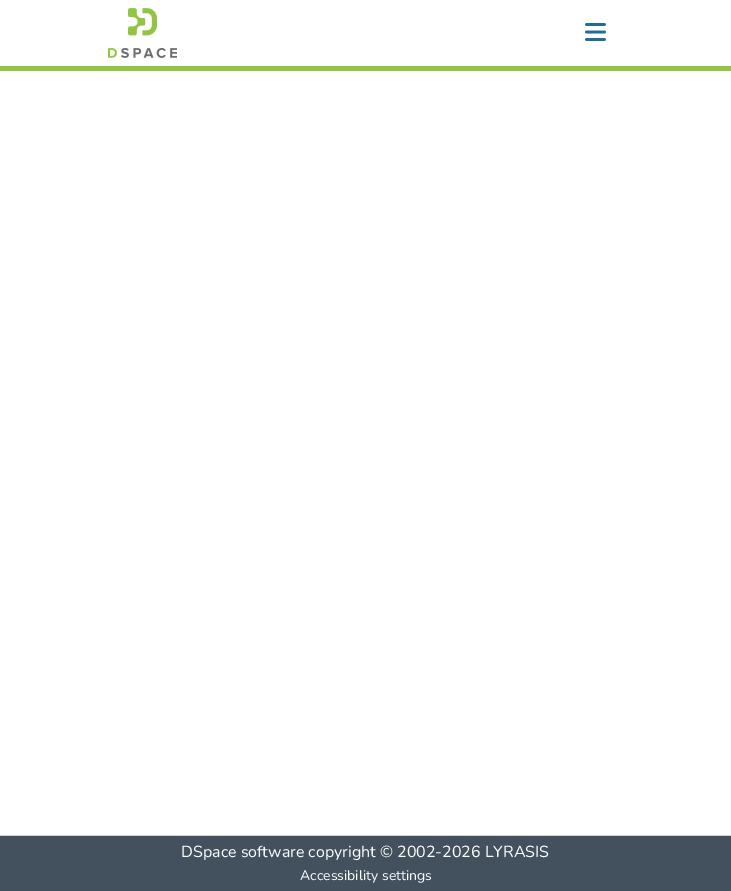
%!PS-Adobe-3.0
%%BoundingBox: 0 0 731 891
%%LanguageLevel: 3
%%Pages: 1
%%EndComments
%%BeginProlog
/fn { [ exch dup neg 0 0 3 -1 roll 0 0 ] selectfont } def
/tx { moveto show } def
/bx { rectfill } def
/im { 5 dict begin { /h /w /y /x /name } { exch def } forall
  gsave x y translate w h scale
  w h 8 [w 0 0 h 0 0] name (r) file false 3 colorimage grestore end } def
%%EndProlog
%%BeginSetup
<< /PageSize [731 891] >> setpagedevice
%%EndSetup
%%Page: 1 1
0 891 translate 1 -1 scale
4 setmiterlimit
1 setgray
0 0 731 891 bx
0.573 0.776 0.259 setrgbcolor
0 66 731 5 bx
(image0.raw) 108 8 69 50 im
(image1.raw) 585 23 21 18 im
0.263 0.318 0.373 setrgbcolor
0 836 731 55 bx
0.808 0.831 0.855 setrgbcolor
0 835 731 1 bx
/Nunito-Regular 16 fn
1 setgray
(DSpace software copyright © 2002-2026 LYRASIS) 181 857 tx
/Nunito-Regular 14 fn
(Accessibility settings) 300 880 tx
showpage
%%EOF
